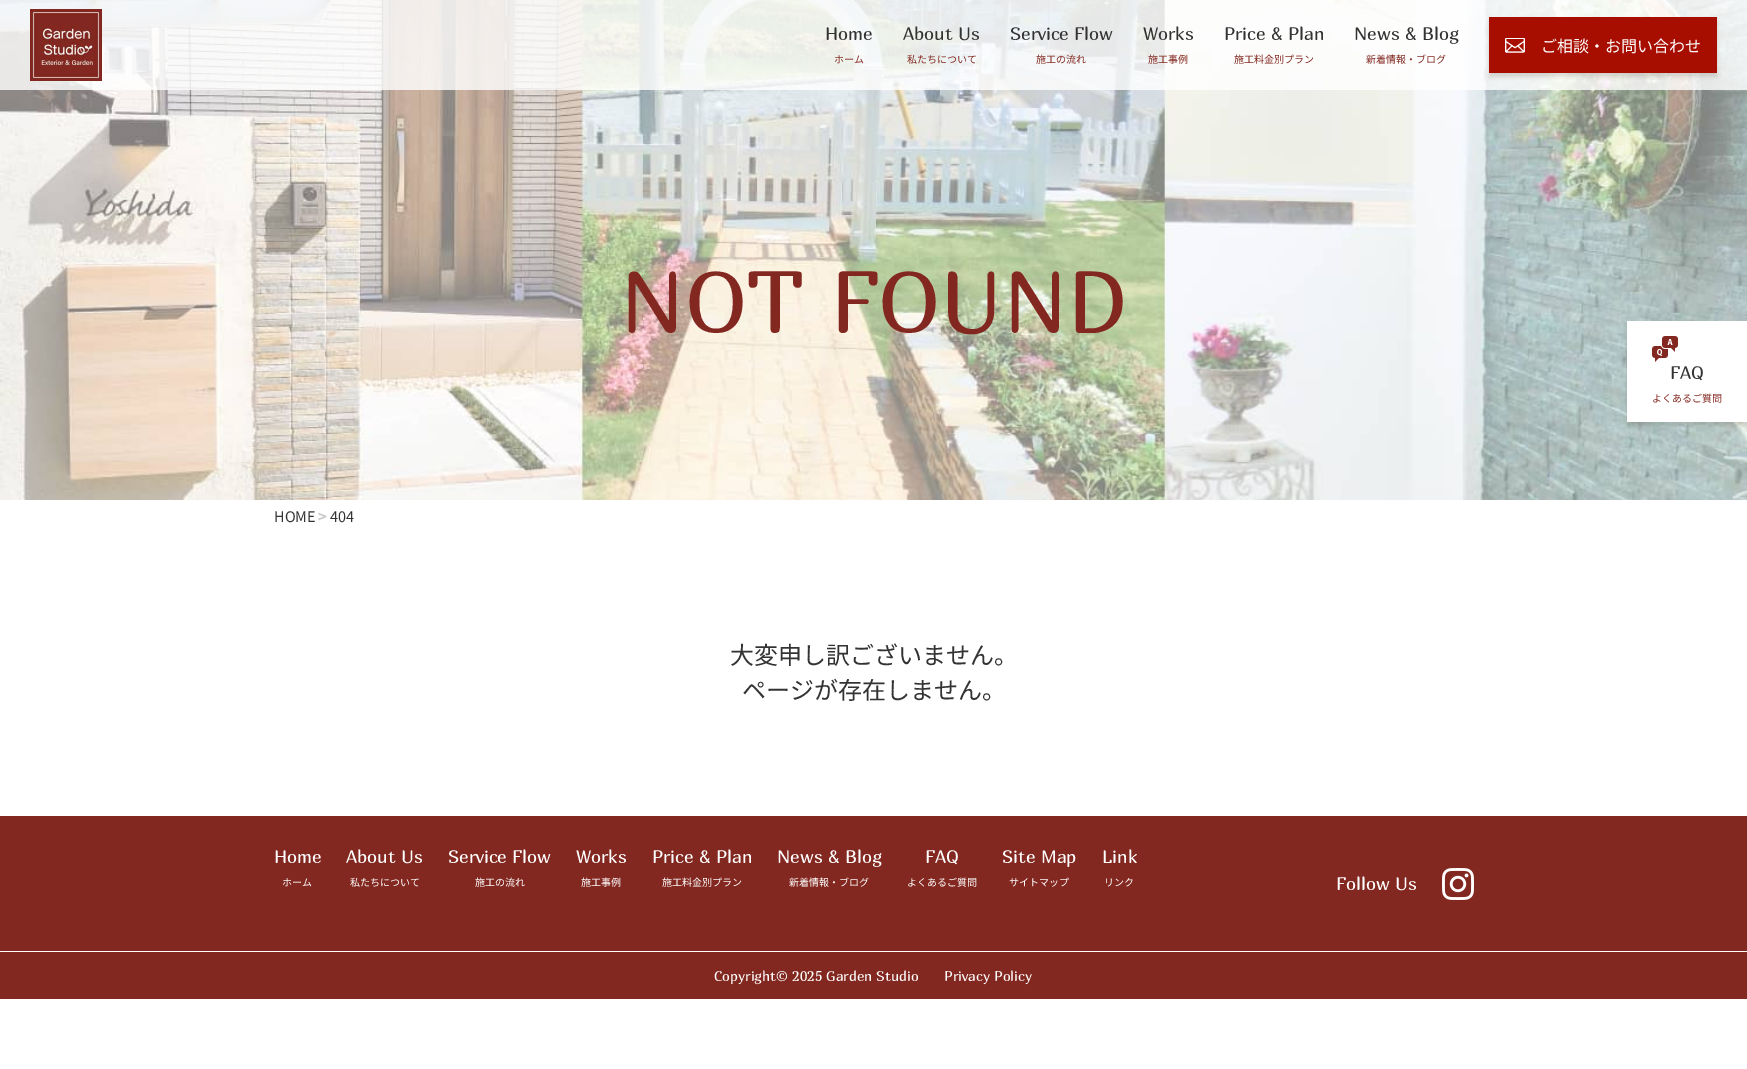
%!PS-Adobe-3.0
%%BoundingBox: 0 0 1747 1069
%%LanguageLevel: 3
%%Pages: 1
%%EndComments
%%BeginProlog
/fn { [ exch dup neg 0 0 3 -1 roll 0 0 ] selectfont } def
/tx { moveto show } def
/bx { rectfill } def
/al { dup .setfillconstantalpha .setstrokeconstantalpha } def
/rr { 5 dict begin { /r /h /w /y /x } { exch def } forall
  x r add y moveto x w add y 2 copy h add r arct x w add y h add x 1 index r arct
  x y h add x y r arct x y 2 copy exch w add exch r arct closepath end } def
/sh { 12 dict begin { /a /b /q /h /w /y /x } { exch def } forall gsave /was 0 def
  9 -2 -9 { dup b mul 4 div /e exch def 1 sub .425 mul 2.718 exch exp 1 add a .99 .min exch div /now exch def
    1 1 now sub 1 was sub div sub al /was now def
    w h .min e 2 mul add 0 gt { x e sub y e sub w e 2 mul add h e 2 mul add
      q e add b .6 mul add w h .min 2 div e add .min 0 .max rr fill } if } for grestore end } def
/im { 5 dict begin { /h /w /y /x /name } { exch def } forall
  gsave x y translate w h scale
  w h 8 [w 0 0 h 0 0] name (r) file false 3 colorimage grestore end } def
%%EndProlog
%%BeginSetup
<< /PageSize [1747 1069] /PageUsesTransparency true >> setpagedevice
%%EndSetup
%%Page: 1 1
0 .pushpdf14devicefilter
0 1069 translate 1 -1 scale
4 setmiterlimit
1 setgray
0 0 1747 1069 bx
(image2.raw) 0 0 1747 500 im
0.8 al
0 0 1747 90 bx
1 al
(image0.raw) 30 9 72 72 im
/Marmelad-Regular 18 fn
0.2 setgray
(Home) 825 40 tx
/NotoSansJP-Regular 10 fn
0.514 0.157 0.125 setrgbcolor
(ホーム) 834 63 tx
/Marmelad-Regular 18 fn
0.2 setgray
(About Us) 903 40 tx
/NotoSansJP-Regular 10 fn
0.514 0.157 0.125 setrgbcolor
(私たちについて) 907 63 tx
/Marmelad-Regular 18 fn
0.2 setgray
(Service Flow) 1010 40 tx
/NotoSansJP-Regular 10 fn
0.514 0.157 0.125 setrgbcolor
(施工の流れ) 1036 63 tx
/Marmelad-Regular 18 fn
0.2 setgray
(Works) 1143 40 tx
/NotoSansJP-Regular 10 fn
0.514 0.157 0.125 setrgbcolor
(施工事例) 1148 63 tx
/Marmelad-Regular 18 fn
0.2 setgray
(Price & Plan) 1224 40 tx
/NotoSansJP-Regular 10 fn
0.514 0.157 0.125 setrgbcolor
(施工料金別プラン) 1234 63 tx
/Marmelad-Regular 18 fn
0.2 setgray
(News & Blog) 1354 40 tx
/NotoSansJP-Regular 10 fn
0.514 0.157 0.125 setrgbcolor
(新着情報・ブログ) 1366 63 tx
0.184 0.102 0.004 setrgbcolor
1489 21 228 56 0 2 0.15 sh
0.659 0.055 0 setrgbcolor
1489 17 228 56 bx
(image1.raw) 1505 38 20 15 im
/NotoSansJP-Regular 16 fn
1 setgray
(ご相談・お問い合わせ) 1541 52 tx
/Marmelad-Regular 87 fn
0.514 0.157 0.125 setrgbcolor
(NOT FOUND) 620 333 tx
0.184 0.102 0.004 setrgbcolor
1627 325 120 101 0 2 0.15 sh
1 setgray
1627 321 120 101 bx
(image3.raw) 1652 336 26 26 im
/Marmelad-Regular 18 fn
0.2 setgray
(FAQ) 1670 379 tx
/NotoSansJP-Regular 10 fn
0.514 0.157 0.125 setrgbcolor
(よくあるご質問) 1652 402 tx
/NotoSansJP-Regular 14.5 fn
0.2 setgray
(HOME) 274 522 tx
/NotoSansJP-Black 14.5 fn
0.8 setgray
(>) 318 522 tx
/NotoSansJP-Regular 14.5 fn
0.2 setgray
(404) 330 522 tx
/NotoSansJP-Regular 24 fn
(大変申し訳ございません。) 730 664 tx
(ページが存在しません。) 742 699 tx
0.514 0.157 0.125 setrgbcolor
0 816 1747 183 bx
/Marmelad-Regular 18 fn
1 setgray
(Home) 274 863 tx
/NotoSansJP-Regular 10 fn
(ホーム) 282 886 tx
/Marmelad-Regular 18 fn
(About Us) 346 863 tx
/NotoSansJP-Regular 10 fn
(私たちについて) 350 886 tx
/Marmelad-Regular 18 fn
(Service Flow) 448 863 tx
/NotoSansJP-Regular 10 fn
(施工の流れ) 475 886 tx
/Marmelad-Regular 18 fn
(Works) 576 863 tx
/NotoSansJP-Regular 10 fn
(施工事例) 581 886 tx
/Marmelad-Regular 18 fn
(Price & Plan) 652 863 tx
/NotoSansJP-Regular 10 fn
(施工料金別プラン) 662 886 tx
/Marmelad-Regular 18 fn
(News & Blog) 777 863 tx
/NotoSansJP-Regular 10 fn
(新着情報・ブログ) 789 886 tx
/Marmelad-Regular 18 fn
(FAQ) 925 863 tx
/NotoSansJP-Regular 10 fn
(よくあるご質問) 907 886 tx
/Marmelad-Regular 18 fn
(Site Map) 1002 863 tx
/NotoSansJP-Regular 10 fn
(サイトマップ) 1009 886 tx
/Marmelad-Regular 18 fn
(Link) 1102 863 tx
/NotoSansJP-Regular 10 fn
(リンク) 1104 886 tx
/Marmelad-Regular 18 fn
(Follow Us) 1336 890 tx
(image4.raw) 1442 868 32 32 im
0 951 1747 1 bx
/Marmelad-Regular 14 fn
(Copyright© 2025 Garden Studio) 714 981 tx
(Privacy Policy) 944 981 tx
.poppdf14devicefilter showpage
%%EOF
